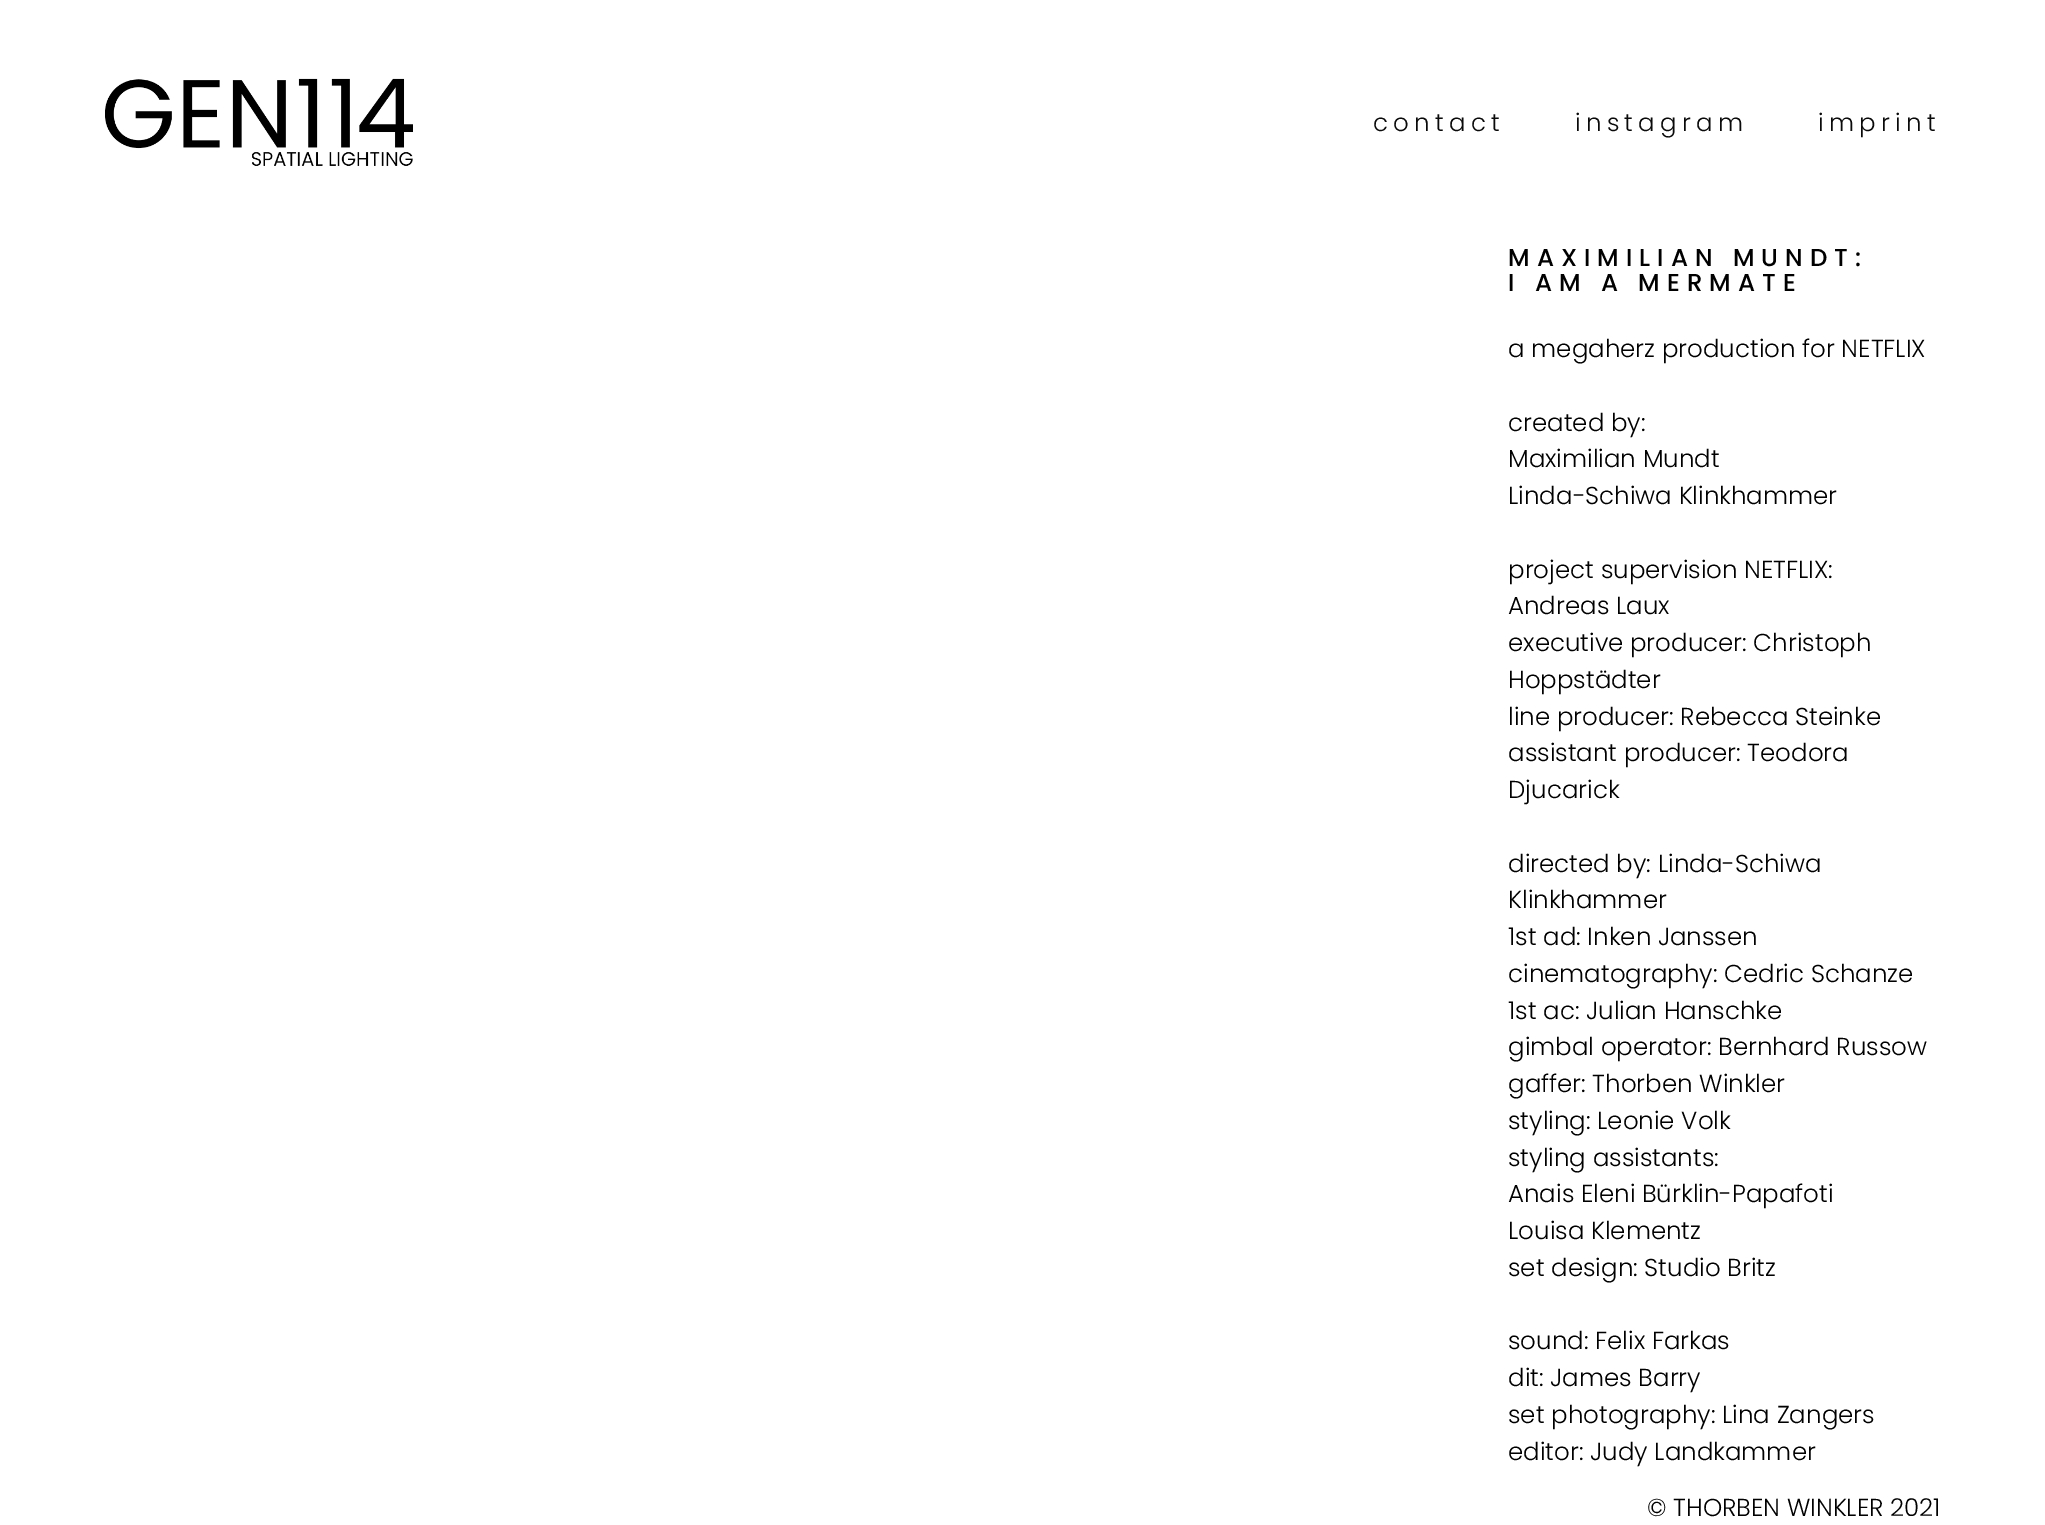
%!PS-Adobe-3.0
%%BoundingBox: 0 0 2045 1525
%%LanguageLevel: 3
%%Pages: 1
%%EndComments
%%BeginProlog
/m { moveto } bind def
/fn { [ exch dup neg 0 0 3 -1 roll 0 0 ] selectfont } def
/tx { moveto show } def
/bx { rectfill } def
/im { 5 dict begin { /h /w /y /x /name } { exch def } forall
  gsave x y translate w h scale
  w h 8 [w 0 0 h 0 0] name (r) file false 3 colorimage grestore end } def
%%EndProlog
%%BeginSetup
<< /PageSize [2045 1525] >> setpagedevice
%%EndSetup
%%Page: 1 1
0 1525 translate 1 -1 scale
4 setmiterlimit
1 setgray
0 0 2045 1525 bx
(image0.raw) 105 78 308 88 im
/Poppins-Light 24.5 fn
0.039 setgray
1373 131 m 5.25 0 (contact) ashow
1575 131 m 5.25 0 (instagram) ashow
1818 131 m 5.25 0 (imprint) ashow
/Poppins-Medium 24.5 fn
0 setgray
1508 266 m 7 0 (MAXIMILIAN MUNDT:) ashow
1508 291 m 7 0 (I AM A MERMATE) ashow
/Poppins-Light 24.5 fn
(a megaherz production for NETFLIX) 1508 357 tx
(created by:) 1508 431 tx
(Maximilian Mundt) 1508 467 tx
(Linda-Schiwa Klinkhammer) 1508 504 tx
(project supervision NETFLIX:) 1508 578 tx
(Andreas Laux) 1508 614 tx
(executive producer: Christoph) 1508 651 tx
(Hoppstädter) 1508 688 tx
(line producer: Rebecca Steinke) 1508 725 tx
(assistant producer: Teodora) 1508 761 tx
(Djucarick) 1508 798 tx
(directed by: Linda-Schiwa) 1508 872 tx
(Klinkhammer) 1508 908 tx
(1st ad: Inken Janssen) 1508 945 tx
(cinematography: Cedric Schanze) 1508 982 tx
(1st ac: Julian Hanschke) 1508 1019 tx
(gimbal operator: Bernhard Russow) 1508 1055 tx
(gaffer: Thorben Winkler) 1508 1092 tx
(styling: Leonie Volk) 1508 1129 tx
(styling assistants:) 1508 1166 tx
(Anais Eleni Bürklin-Papafoti) 1508 1202 tx
(Louisa Klementz) 1508 1239 tx
(set design: Studio Britz) 1508 1276 tx
(sound: Felix Farkas) 1508 1349 tx
(dit: James Barry) 1508 1386 tx
(set photography: Lina Zangers) 1508 1423 tx
(editor: Judy Landkammer) 1508 1460 tx
(© THORBEN WINKLER 2021) 1647 1516 tx
showpage
%%EOF
